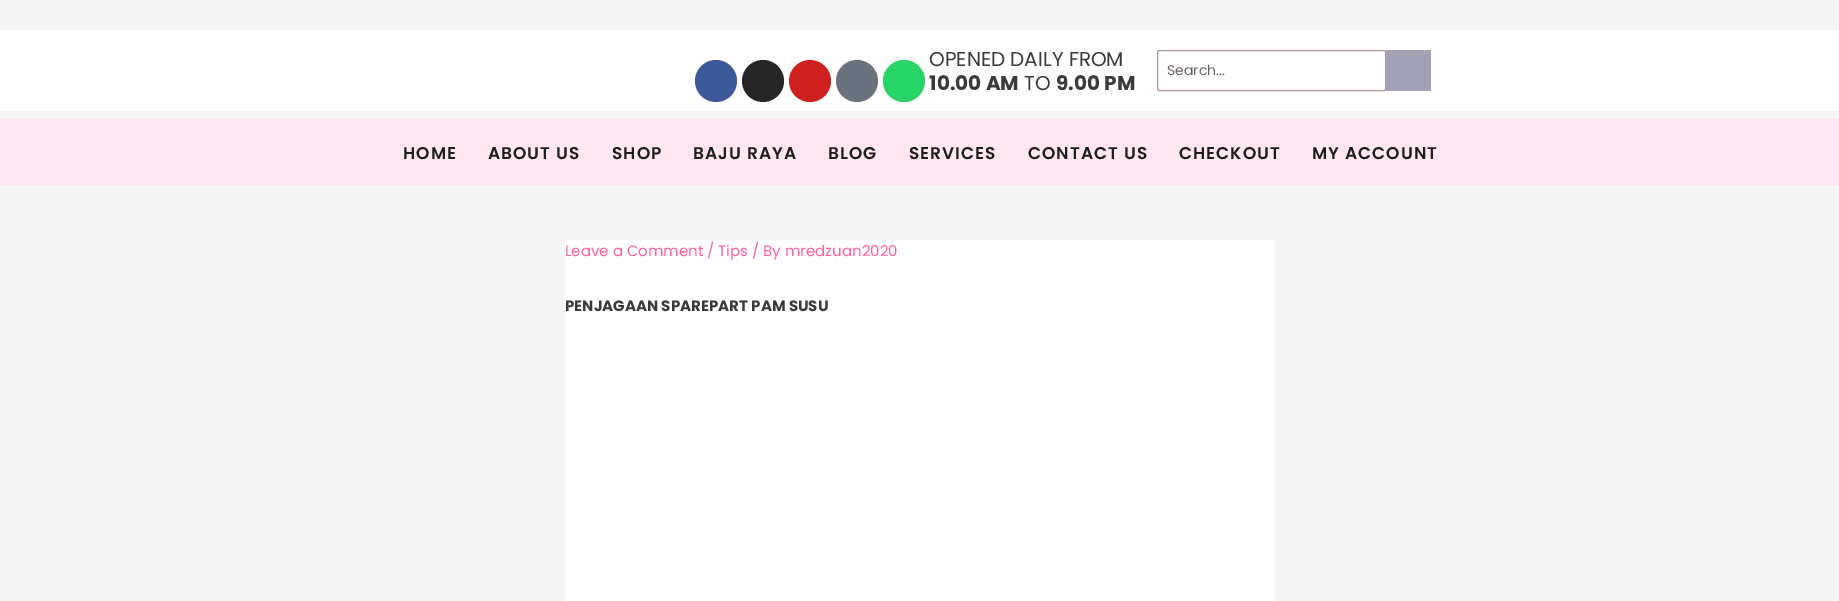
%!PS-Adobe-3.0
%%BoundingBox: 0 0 1839 601
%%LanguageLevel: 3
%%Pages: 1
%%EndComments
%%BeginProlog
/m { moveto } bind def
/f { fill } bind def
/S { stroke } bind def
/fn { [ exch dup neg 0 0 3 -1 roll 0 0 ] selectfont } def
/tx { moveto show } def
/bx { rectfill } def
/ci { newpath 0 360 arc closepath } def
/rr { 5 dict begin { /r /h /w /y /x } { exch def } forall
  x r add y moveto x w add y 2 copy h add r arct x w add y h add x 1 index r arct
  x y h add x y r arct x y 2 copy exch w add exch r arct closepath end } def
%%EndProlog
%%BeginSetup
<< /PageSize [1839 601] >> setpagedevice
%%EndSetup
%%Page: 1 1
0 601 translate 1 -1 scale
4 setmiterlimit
0.961 setgray
0 0 1839 601 bx
1 setgray
0 30 1839 81 bx
0.231 0.349 0.596 setrgbcolor
716 81 21 ci f
0.149 setgray
763 81 21 ci f
0.804 0.125 0.122 setrgbcolor
810 81 21 ci f
0.412 0.447 0.49 setrgbcolor
857 81 21 ci f
0.145 0.827 0.4 setrgbcolor
904 81 21 ci f
/Poppins-Regular 20 fn
0.227 setgray
(OPENED DAILY FROM) 929 66 tx
/Poppins-Bold 20 fn
(10.00 AM) 929 90 tx
/Poppins-Regular 20 fn
(TO) 1024 90 tx
/Poppins-Bold 20 fn
(9.00 PM) 1056 90 tx
0.686 0.592 0.592 setrgbcolor
1157.5 50.5 228 40 1.5 rr S
/Poppins-Regular 14 fn
0.42 0.388 0.388 setrgbcolor
(Search...) 1167 75 tx
0.635 0.635 0.706 setrgbcolor
1386 50 45 41 bx
1 0.902 0.941 setrgbcolor
0 119 1839 66 bx
/Poppins-SemiBold 17 fn
0.114 setgray
403 159 m 1 0 (HOME) ashow
488 159 m 1 0 (ABOUT US) ashow
612 159 m 1 0 (SHOP) ashow
693 159 m 1 0 (BAJU RAYA) ashow
828 159 m 1 0 (BLOG) ashow
909 159 m 1 0 (SERVICES) ashow
1028 159 m 1 0 (CONTACT US) ashow
1179 159 m 1 0 (CHECKOUT) ashow
1312 159 m 1 0 (MY ACCOUNT) ashow
1 setgray
565 240 710 361 bx
/Poppins-Regular 15 fn
1 0.38 0.627 setrgbcolor
(Leave a Comment / Tips / By mredzuan2020) 565 256 tx
/Poppins-Bold 15 fn
0.227 setgray
(PENJAGAAN SPAREPART PAM SUSU) 565 311 tx
showpage
%%EOF
